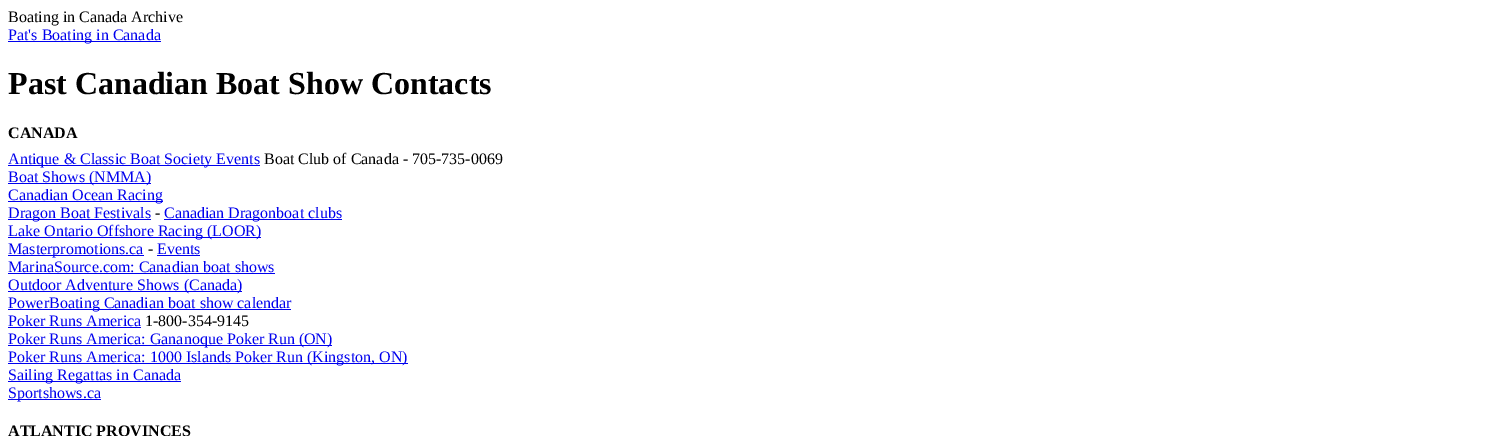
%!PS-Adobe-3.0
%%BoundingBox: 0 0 1504 436
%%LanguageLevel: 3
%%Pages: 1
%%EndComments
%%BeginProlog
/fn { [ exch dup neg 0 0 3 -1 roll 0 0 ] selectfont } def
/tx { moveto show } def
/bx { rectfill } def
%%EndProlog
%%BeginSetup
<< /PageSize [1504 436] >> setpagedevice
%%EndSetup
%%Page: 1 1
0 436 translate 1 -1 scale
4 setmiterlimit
1 setgray
0 0 1504 436 bx
/LiberationSerif-Regular 16 fn
0 setgray
(Boating in Canada Archive) 8 22 tx
0 0 0.933 setrgbcolor
8 41 153 1 bx
(Pat's Boating in Canada) 8 40 tx
/LiberationSerif-Bold 32 fn
0 setgray
(Past Canadian Boat Show Contacts) 8 94 tx
/LiberationSerif-Bold 16 fn
(CANADA) 8 138 tx
0 0 0.933 setrgbcolor
8 165 252 1 bx
/LiberationSerif-Regular 16 fn
(Antique & Classic Boat Society Events) 8 164 tx
0 setgray
(Boat Club of Canada - 705-735-0069) 264 164 tx
0 0 0.933 setrgbcolor
8 183 143 1 bx
(Boat Shows \(NMMA\)) 8 182 tx
8 201 155 1 bx
(Canadian Ocean Racing) 8 200 tx
8 219 143 1 bx
(Dragon Boat Festivals) 8 218 tx
0 setgray
(-) 155 218 tx
0 0 0.933 setrgbcolor
164 219 178 1 bx
(Canadian Dragonboat clubs) 164 218 tx
8 237 253 1 bx
(Lake Ontario Offshore Racing \(LOOR\)) 8 236 tx
8 255 136 1 bx
(Masterpromotions.ca) 8 254 tx
0 setgray
(-) 148 254 tx
0 0 0.933 setrgbcolor
(Events) 157 254 tx
157 255 43 1 bx
(MarinaSource.com: Canadian boat shows) 8 272 tx
8 273 267 1 bx
8 291 234 1 bx
(Outdoor Adventure Shows \(Canada\)) 8 290 tx
8 309 283 1 bx
(PowerBoating Canadian boat show calendar) 8 308 tx
(Poker Runs America) 8 326 tx
8 327 133 1 bx
0 setgray
(1-800-354-9145) 145 326 tx
0 0 0.933 setrgbcolor
8 345 324 1 bx
(Poker Runs America: Gananoque Poker Run \(ON\)) 8 344 tx
8 363 400 1 bx
(Poker Runs America: 1000 Islands Poker Run \(Kingston, ON\)) 8 362 tx
8 381 173 1 bx
(Sailing Regattas in Canada) 8 380 tx
8 399 93 1 bx
(Sportshows.ca) 8 398 tx
/LiberationSerif-Bold 16 fn
0 setgray
(ATLANTIC PROVINCES) 8 436 tx
showpage
%%EOF
